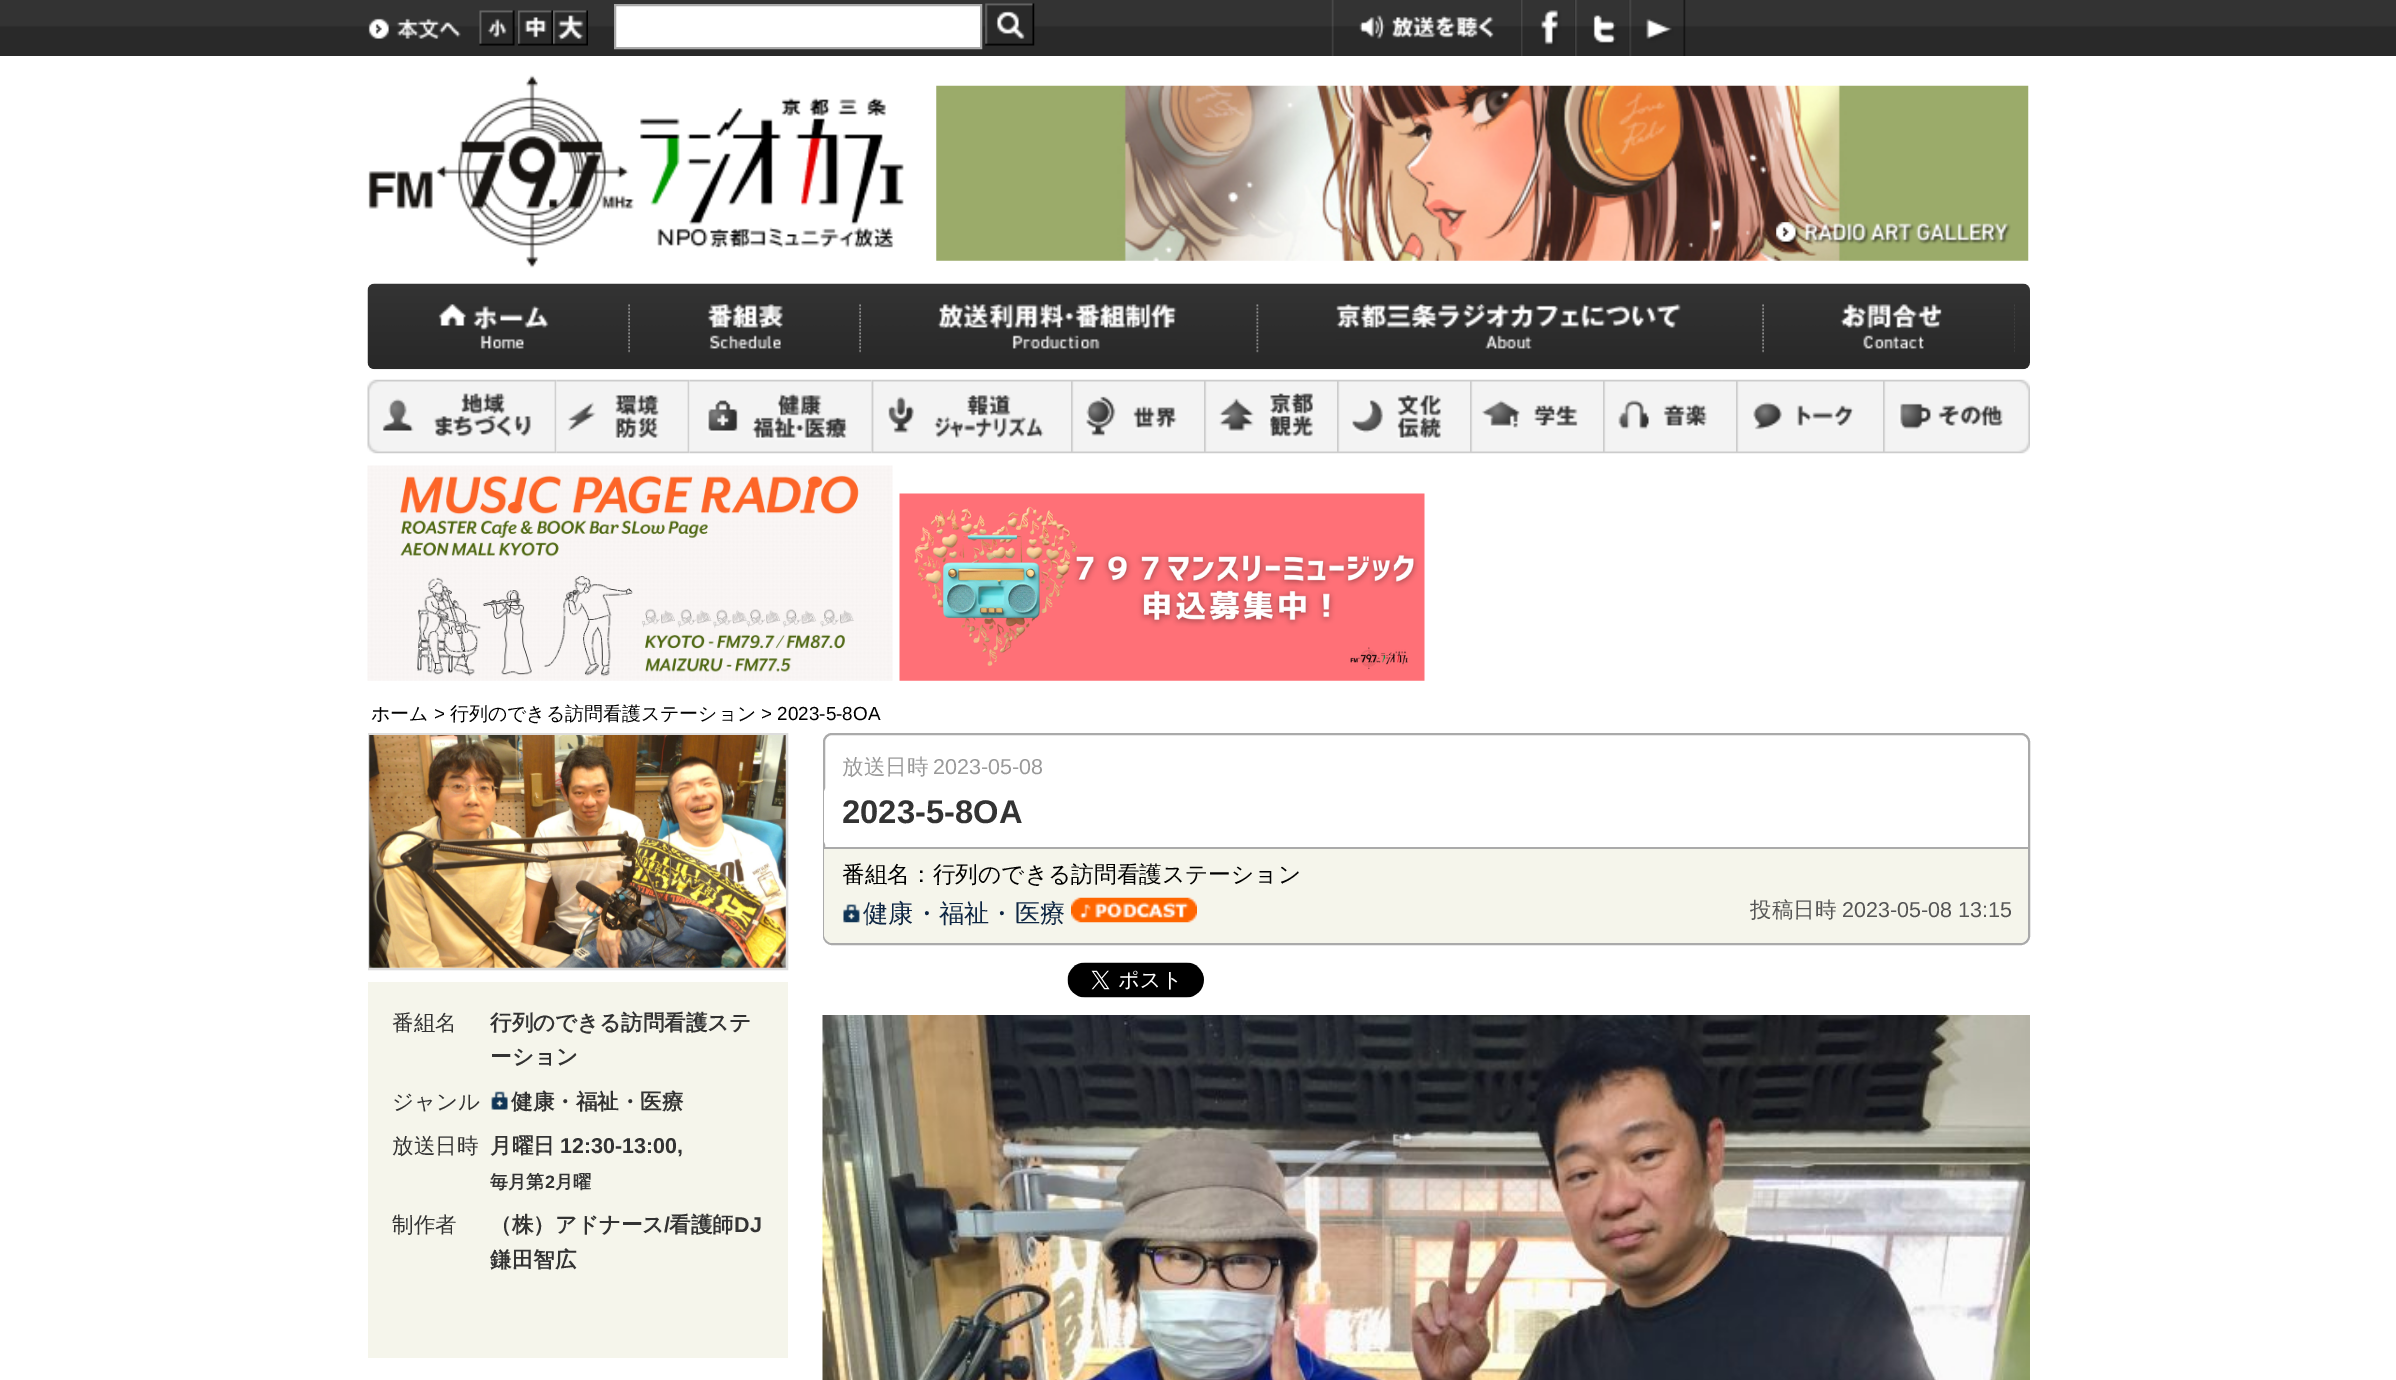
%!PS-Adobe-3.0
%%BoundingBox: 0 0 2396 1380
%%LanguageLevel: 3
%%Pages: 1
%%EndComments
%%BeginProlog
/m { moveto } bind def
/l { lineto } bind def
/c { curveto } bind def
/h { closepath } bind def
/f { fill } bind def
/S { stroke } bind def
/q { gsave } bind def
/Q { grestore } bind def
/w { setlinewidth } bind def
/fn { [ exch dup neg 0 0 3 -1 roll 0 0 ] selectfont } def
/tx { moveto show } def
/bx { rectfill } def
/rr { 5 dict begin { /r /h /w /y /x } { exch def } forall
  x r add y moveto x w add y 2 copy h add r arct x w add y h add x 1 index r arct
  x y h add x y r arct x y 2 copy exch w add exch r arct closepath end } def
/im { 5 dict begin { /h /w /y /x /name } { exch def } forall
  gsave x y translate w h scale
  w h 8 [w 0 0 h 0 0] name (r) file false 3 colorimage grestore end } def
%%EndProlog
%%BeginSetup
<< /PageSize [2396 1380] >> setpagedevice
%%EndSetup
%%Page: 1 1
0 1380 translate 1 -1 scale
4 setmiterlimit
1 setgray
0 0 2396 1380 bx
(image0.raw) 0 0 2396 56 im
(image1.raw) 368 18 93 21 im
(image2.raw) 479 10 36 36 im
(image3.raw) 518 10 35 36 im
(image4.raw) 553 10 35 36 im
615 5 m 981 5 l 981 48 l 615 48 l h q f Q
0.667 setgray
2 w
S
(image5.raw) 985 3 50 43 im
(image6.raw) 1331 0 190 56 im
(image7.raw) 1520 0 55 56 im
(image8.raw) 1575 0 55 56 im
(image9.raw) 1629 0 57 56 im
(image10.raw) 368 75 536 193 im
(image11.raw) 936 85 1093 176 im
(image12.raw) 1776 222 235 23 im
(image13.raw) 367 283 1663 87 im
(image14.raw) 628 304 2 49 im
(image15.raw) 438 304 111 45 im
(image14.raw) 859 304 2 49 im
(image16.raw) 707 304 76 45 im
(image17.raw) 1256 304 3 49 im
(image18.raw) 937 304 240 45 im
(image14.raw) 1762 304 2 49 im
(image19.raw) 1336 304 345 45 im
(image20.raw) 2014 304 1 49 im
(image21.raw) 1840 304 175 49 im
(image22.raw) 367 379 190 75 im
(image23.raw) 556 379 134 75 im
(image24.raw) 689 379 183 75 im
(image25.raw) 871 379 200 75 im
(image26.raw) 1071 379 133 75 im
(image27.raw) 1204 379 133 75 im
(image28.raw) 1337 379 133 75 im
(image29.raw) 1470 379 133 75 im
(image30.raw) 1603 379 133 75 im
(image31.raw) 1736 379 147 75 im
(image32.raw) 1883 379 147 75 im
(image33.raw) 367 465 526 216 im
(image34.raw) 899 493 526 188 im
/WenQuanYiZenHei-Medium 18.9 fn
0 setgray
(ホーム) 371 720 tx
/LiberationSans-Regular 18.9 fn
(>) 434 720 tx
/WenQuanYiZenHei-Medium 18.9 fn
(行列のできる訪問看護ステーション) 450 720 tx
/LiberationSans-Regular 18.9 fn
(> 2023-5-8OA) 761 720 tx
0.667 setgray
824 734 1205 210 8 rr S
/WenQuanYiZenHei-Medium 21.5 fn
0.6 setgray
(放送日時) 842 774 tx
/LiberationSans-Regular 21.5 fn
(2023-05-08) 933 774 tx
1 setgray
824 786 1204 61 7 rr f
/LiberationSans-Bold 32.75 fn
0.2 setgray
(2023-5-8OA) 842 823 tx
0.961 0.961 0.922 setrgbcolor
824 847 m 2028 847 l 2028 934 l 2028 939 2024 943 2019 943 c 833 943 l 828 943 824 939 824 934 c h f
0.667 setgray
824 847 1204 2 bx
/WenQuanYiZenHei-Medium 22.7 fn
0 setgray
(番組名：行列のできる訪問看護ステーション) 842 882 tx
(image35.raw) 843 904 17 19 im
/WenQuanYiZenHei-Medium 25.25 fn
0.055 0.149 0.263 setrgbcolor
(健康・福祉・医療) 863 922 tx
(image36.raw) 1071 897 126 26 im
/WenQuanYiZenHei-Medium 21.5 fn
0.333 setgray
(投稿日時) 1750 917 tx
/LiberationSans-Regular 21.5 fn
(2023-05-08 13:15) 1842 917 tx
(image37.raw) 1067 962 137 36 im
(image38.raw) 822 1015 1208 365 im
0.867 setgray
369 734 418 235 rectstroke
(image39.raw) 369 735 417 233 im
0.961 0.961 0.922 setrgbcolor
368 982 420 376 bx
/WenQuanYiZenHei-Medium 21.5 fn
0.2 setgray
(番組名) 392 1030 tx
/WenQuanYiZenHei-Bold 21.5 fn
(行列のできる訪問看護ステ) 490 1030 tx
(ーション) 490 1064 tx
/WenQuanYiZenHei-Medium 21.5 fn
(ジャンル) 392 1109 tx
(image40.raw) 491 1091 17 19 im
/WenQuanYiZenHei-Bold 21.5 fn
(健康・福祉・医療) 511 1109 tx
/WenQuanYiZenHei-Medium 21.5 fn
(放送日時) 392 1153 tx
/WenQuanYiZenHei-Bold 21.5 fn
(月曜日) 490 1153 tx
/LiberationSans-Bold 21.5 fn
(12:30-13:00,) 560 1153 tx
/WenQuanYiZenHei-Bold 18 fn
(毎月第) 490 1188 tx
/LiberationSans-Bold 18 fn
(2) 545 1188 tx
/WenQuanYiZenHei-Bold 18 fn
(月曜) 555 1188 tx
/WenQuanYiZenHei-Medium 21.5 fn
(制作者) 392 1232 tx
/WenQuanYiZenHei-Bold 21.5 fn
(（株）アドナース) 490 1232 tx
/LiberationSans-Bold 21.5 fn
(/) 664 1232 tx
/WenQuanYiZenHei-Bold 21.5 fn
(看護師) 669 1232 tx
/LiberationSans-Bold 21.5 fn
(DJ) 734 1232 tx
/WenQuanYiZenHei-Bold 21.5 fn
(鎌田智広) 490 1267 tx
showpage
%%EOF
